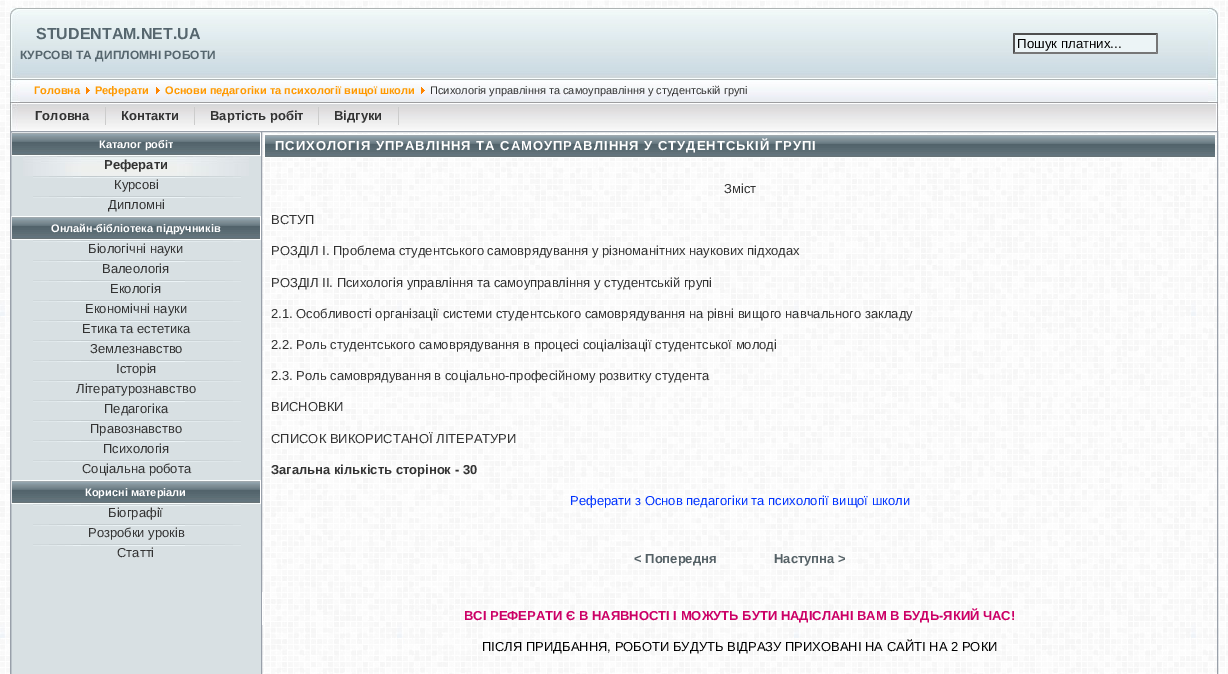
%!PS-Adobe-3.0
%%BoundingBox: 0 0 1228 674
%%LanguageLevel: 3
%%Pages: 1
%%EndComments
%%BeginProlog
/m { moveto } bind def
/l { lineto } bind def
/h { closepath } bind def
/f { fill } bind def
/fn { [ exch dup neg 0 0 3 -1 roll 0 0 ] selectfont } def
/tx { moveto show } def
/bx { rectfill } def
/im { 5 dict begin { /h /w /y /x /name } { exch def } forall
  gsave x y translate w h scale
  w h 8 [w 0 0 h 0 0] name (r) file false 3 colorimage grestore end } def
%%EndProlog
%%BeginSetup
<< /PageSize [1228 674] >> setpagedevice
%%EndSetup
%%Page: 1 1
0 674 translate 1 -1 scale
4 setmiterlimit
1 setgray
0 0 1228 674 bx
(image0.raw) 0 0 1228 674 im
(image1.raw) 20 8 1188 71 im
(image2.raw) 10 8 10 71 im
/LiberationSans-Bold 16 fn
0.337 0.4 0.431 setrgbcolor
(STUDENTAM.NET.UA) 36 39 tx
/LiberationSans-Bold 12 fn
(КУРСОВІ ТА ДИПЛОМНІ РОБОТИ) 20 59 tx
0.925 0.957 0.965 setrgbcolor
1013 33 145 21 bx
0.31 setgray
1013 33 m 1158 33 l 1156 35 l 1015 35 l h f
0.463 setgray
1158 33 m 1158 54 l 1156 52 l 1156 35 l h f
1158 54 m 1013 54 l 1015 52 l 1156 52 l h f
0.31 setgray
1013 54 m 1013 33 l 1015 35 l 1015 52 l h f
/LiberationSans-Regular 13.25 fn
0 setgray
(Пошук платних...) 1017 48 tx
(image3.raw) 1208 8 10 71 im
(image4.raw) 20 79 1188 23 im
(image5.raw) 10 79 10 23 im
/LiberationSans-Bold 11 fn
1 0.6 0 setrgbcolor
(Головна) 34 94 tx
(image6.raw) 86 87 4 7 im
(Реферати) 95 94 tx
(image6.raw) 156 87 4 7 im
(Основи педагогіки та психології вищої школи) 165 94 tx
(image6.raw) 421 87 4 7 im
/LiberationSans-Regular 11 fn
0.2 setgray
(Психологія управління та самоуправління у студентській групі) 430 94 tx
(image7.raw) 1208 79 10 23 im
(image8.raw) 18 102 1198 29 im
(image9.raw) 10 102 8 29 im
0.8 setgray
105 107 1 18 bx
/LiberationSans-Bold 13 fn
0.2 setgray
(Головна) 35 120 tx
0.8 setgray
194 107 1 18 bx
0.2 setgray
(Контакти) 121 120 tx
0.8 setgray
318 107 1 18 bx
0.2 setgray
(Вартість робіт) 210 120 tx
0.8 setgray
398 107 1 18 bx
0.2 setgray
(Відгуки) 334 120 tx
(image10.raw) 1216 102 2 29 im
0.847 0.878 0.89 setrgbcolor
11 156 250 518 bx
0.6 0.627 0.667 setrgbcolor
10.5 131.5 251 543 rectstroke
(image11.raw) 12 132 248 24 im
1 setgray
260 132 1 24 bx
(image12.raw) 23 156 226 20 im
(image13.raw) 33 176 208 2 im
(image13.raw) 33 196 208 2 im
(image11.raw) 12 216 248 24 im
260 216 1 24 bx
11 216 1 24 bx
(image13.raw) 33 240 208 2 im
(image13.raw) 33 260 208 2 im
(image13.raw) 33 280 208 2 im
(image13.raw) 33 300 208 2 im
(image13.raw) 33 320 208 2 im
(image13.raw) 33 340 208 2 im
(image13.raw) 33 360 208 2 im
(image13.raw) 33 380 208 2 im
(image13.raw) 33 400 208 2 im
(image13.raw) 33 420 208 2 im
(image13.raw) 33 440 208 2 im
(image13.raw) 33 460 208 2 im
(image11.raw) 12 480 248 24 im
260 480 1 24 bx
11 480 1 24 bx
(image13.raw) 33 504 208 2 im
(image13.raw) 33 524 208 2 im
(image13.raw) 33 544 208 2 im
(image14.raw) 265 134 950 24 im
262 592 1 33 bx
0.6 0.627 0.667 setrgbcolor
10.5 131.5 1207 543 rectstroke
/LiberationSans-Bold 11 fn
1 setgray
(Каталог робіт) 99 148 tx
/LiberationSans-Bold 13 fn
0.2 setgray
(Реферати) 104 169 tx
/LiberationSans-Regular 13 fn
(Курсові) 114 189 tx
(Дипломні) 108 209 tx
/LiberationSans-Bold 11 fn
1 setgray
(Онлайн-бібліотека підручників) 51 232 tx
/LiberationSans-Regular 13 fn
0.2 setgray
(Біологічні науки) 88 253 tx
(Валеологія) 102 273 tx
(Екологія) 110 293 tx
(Економічні науки) 85 313 tx
(Етика та естетика) 82 333 tx
(Землезнавство) 90 353 tx
(Історія) 116 373 tx
(Літературознавство) 76 393 tx
(Педагогіка) 104 413 tx
(Правознавство) 90 433 tx
(Психологія) 103 453 tx
(Соціальна робота) 82 473 tx
/LiberationSans-Bold 11 fn
1 setgray
(Корисні матеріали) 85 496 tx
/LiberationSans-Regular 13 fn
0.2 setgray
(Біографії) 108 517 tx
(Розробки уроків) 88 537 tx
(Статті) 117 557 tx
/LiberationSans-Bold 13 fn
1 setgray
275 150 m 1 0 (ПСИХОЛОГІЯ УПРАВЛІННЯ ТА САМОУПРАВЛІННЯ У СТУДЕНТСЬКІЙ ГРУПІ) ashow
/LiberationSans-Regular 13 fn
0.2 setgray
(Зміст) 724 193 tx
(ВСТУП) 271 224 tx
(РОЗДІЛ І. Проблема студентського самоврядування у різноманітних наукових підходах) 271 255 tx
(РОЗДІЛ ІІ. Психологія управління та самоуправління у студентській групі) 271 287 tx
(2.1. Особливості організації системи студентського самоврядування на рівні вищого навчального закладу) 271 318 tx
(2.2. Роль студентського самоврядування в процесі соціалізації студентської молоді) 271 349 tx
(2.3. Роль самоврядування в соціально-професійному розвитку студента) 271 380 tx
(ВИСНОВКИ) 271 411 tx
(СПИСОК ВИКОРИСТАНОЇ ЛІТЕРАТУРИ) 271 443 tx
/LiberationSans-Bold 13 fn
(Загальна кількість сторінок - 30) 271 474 tx
/LiberationSans-Regular 13 fn
0 0.2 1 setrgbcolor
(Реферати з Основ педагогіки та психології вищої школи) 570 505 tx
/LiberationSans-Bold 13 fn
0.333 0.38 0.4 setrgbcolor
(< Попередня) 634 563 tx
(Наступна >) 774 563 tx
0.8 0 0.4 setrgbcolor
(ВСІ РЕФЕРАТИ Є В НАЯВНОСТІ І МОЖУТЬ БУТИ НАДІСЛАНІ ВАМ В БУДЬ-ЯКИЙ ЧАС!) 464 620 tx
/LiberationSans-Regular 13 fn
0 setgray
(ПІСЛЯ ПРИДБАННЯ, РОБОТИ БУДУТЬ ВІДРАЗУ ПРИХОВАНІ НА САЙТІ НА 2 РОКИ) 482 651 tx
showpage
%%EOF
